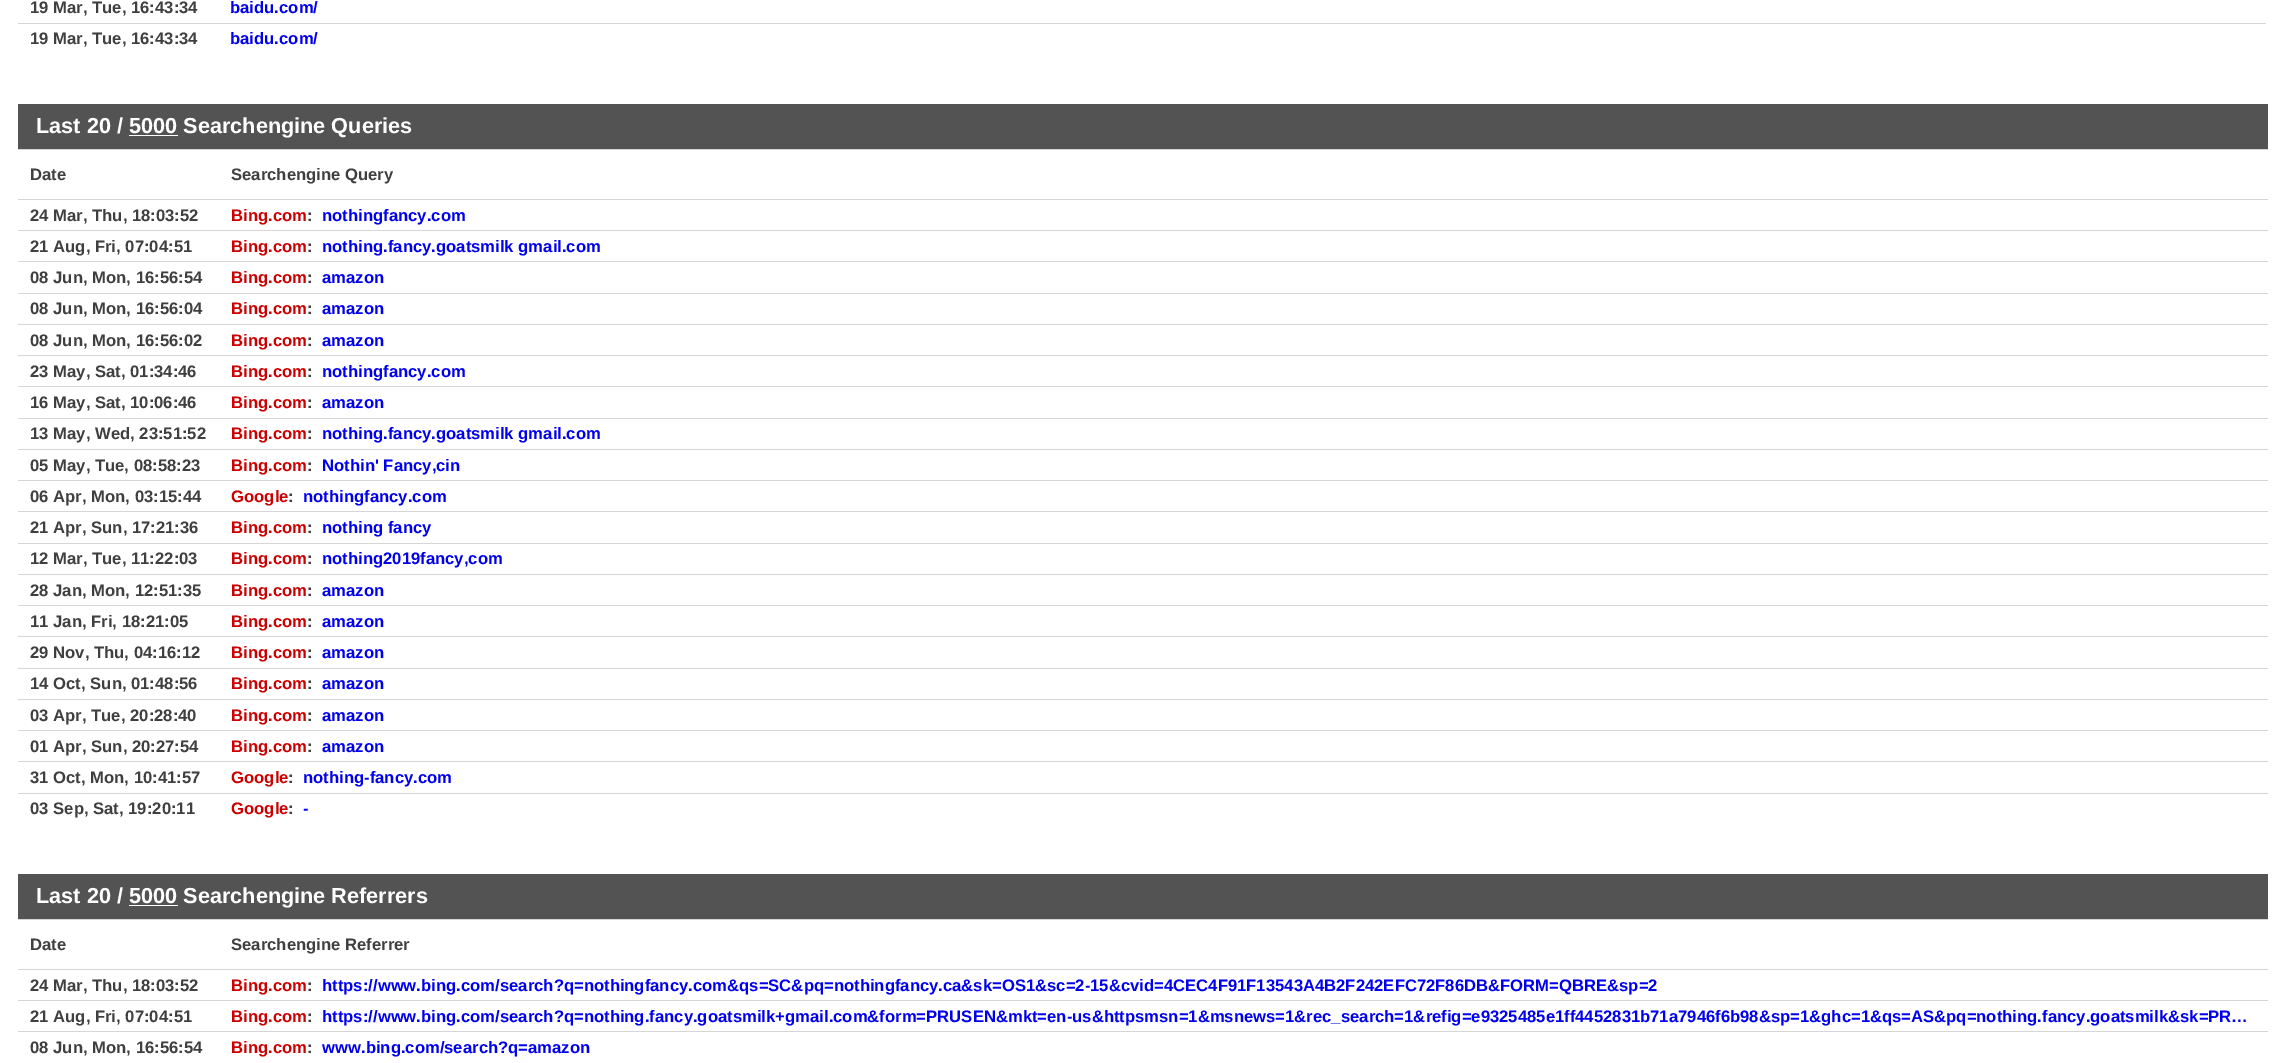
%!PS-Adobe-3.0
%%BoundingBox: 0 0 2283 1063
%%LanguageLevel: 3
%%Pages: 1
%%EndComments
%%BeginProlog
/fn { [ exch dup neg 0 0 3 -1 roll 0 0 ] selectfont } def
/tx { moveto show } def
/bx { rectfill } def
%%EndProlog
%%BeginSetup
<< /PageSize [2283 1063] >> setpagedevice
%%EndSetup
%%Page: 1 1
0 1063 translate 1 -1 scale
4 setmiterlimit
1 setgray
0 0 2283 1063 bx
/LiberationSans-Bold 16.67 fn
0.247 setgray
(19 Mar, Tue, 16:43:34) 30 13 tx
0 0 0.933 setrgbcolor
(baidu.com/) 230 13 tx
0.839 setgray
18 23 2248 1 bx
0.247 setgray
(19 Mar, Tue, 16:43:34) 30 44 tx
0 0 0.933 setrgbcolor
(baidu.com/) 230 44 tx
0.325 setgray
18 104 2250 45 bx
/LiberationSans-Bold 21.7 fn
1 setgray
(Last 20 / 5000 Searchengine Queries) 36 133 tx
129 135 49 1 bx
0.839 setgray
18 149 2250 1 bx
/LiberationSans-Bold 16.67 fn
0.247 setgray
(Date) 30 180 tx
(Searchengine Query) 231 180 tx
0.839 setgray
18 199 2250 1 bx
0.247 setgray
(24 Mar, Thu, 18:03:52) 30 221 tx
0.8 0 0 setrgbcolor
(Bing.com) 231 221 tx
0.247 setgray
(:) 307 221 tx
0 0 0.933 setrgbcolor
(nothingfancy.com) 322 221 tx
0.839 setgray
18 230 2250 1 bx
0.247 setgray
(21 Aug, Fri, 07:04:51) 30 252 tx
0.8 0 0 setrgbcolor
(Bing.com) 231 252 tx
0.247 setgray
(:) 307 252 tx
0 0 0.933 setrgbcolor
(nothing.fancy.goatsmilk gmail.com) 322 252 tx
0.839 setgray
18 261 2250 1 bx
0.247 setgray
(08 Jun, Mon, 16:56:54) 30 283 tx
0.8 0 0 setrgbcolor
(Bing.com) 231 283 tx
0.247 setgray
(:) 307 283 tx
0 0 0.933 setrgbcolor
(amazon) 322 283 tx
0.839 setgray
18 293 2250 1 bx
0.247 setgray
(08 Jun, Mon, 16:56:04) 30 314 tx
0.8 0 0 setrgbcolor
(Bing.com) 231 314 tx
0.247 setgray
(:) 307 314 tx
0 0 0.933 setrgbcolor
(amazon) 322 314 tx
0.839 setgray
18 324 2250 1 bx
0.247 setgray
(08 Jun, Mon, 16:56:02) 30 346 tx
0.8 0 0 setrgbcolor
(Bing.com) 231 346 tx
0.247 setgray
(:) 307 346 tx
0 0 0.933 setrgbcolor
(amazon) 322 346 tx
0.839 setgray
18 355 2250 1 bx
0.247 setgray
(23 May, Sat, 01:34:46) 30 377 tx
0.8 0 0 setrgbcolor
(Bing.com) 231 377 tx
0.247 setgray
(:) 307 377 tx
0 0 0.933 setrgbcolor
(nothingfancy.com) 322 377 tx
0.839 setgray
18 386 2250 1 bx
0.247 setgray
(16 May, Sat, 10:06:46) 30 408 tx
0.8 0 0 setrgbcolor
(Bing.com) 231 408 tx
0.247 setgray
(:) 307 408 tx
0 0 0.933 setrgbcolor
(amazon) 322 408 tx
0.839 setgray
18 418 2250 1 bx
0.247 setgray
(13 May, Wed, 23:51:52) 30 439 tx
0.8 0 0 setrgbcolor
(Bing.com) 231 439 tx
0.247 setgray
(:) 307 439 tx
0 0 0.933 setrgbcolor
(nothing.fancy.goatsmilk gmail.com) 322 439 tx
0.839 setgray
18 449 2250 1 bx
0.247 setgray
(05 May, Tue, 08:58:23) 30 471 tx
0.8 0 0 setrgbcolor
(Bing.com) 231 471 tx
0.247 setgray
(:) 307 471 tx
0 0 0.933 setrgbcolor
(Nothin' Fancy,cin) 322 471 tx
0.839 setgray
18 480 2250 1 bx
0.247 setgray
(06 Apr, Mon, 03:15:44) 30 502 tx
0.8 0 0 setrgbcolor
(Google) 231 502 tx
0.247 setgray
(:) 288 502 tx
0 0 0.933 setrgbcolor
(nothingfancy.com) 303 502 tx
0.839 setgray
18 511 2250 1 bx
0.247 setgray
(21 Apr, Sun, 17:21:36) 30 533 tx
0.8 0 0 setrgbcolor
(Bing.com) 231 533 tx
0.247 setgray
(:) 307 533 tx
0 0 0.933 setrgbcolor
(nothing fancy) 322 533 tx
0.839 setgray
18 543 2250 1 bx
0.247 setgray
(12 Mar, Tue, 11:22:03) 30 564 tx
0.8 0 0 setrgbcolor
(Bing.com) 231 564 tx
0.247 setgray
(:) 307 564 tx
0 0 0.933 setrgbcolor
(nothing2019fancy,com) 322 564 tx
0.839 setgray
18 574 2250 1 bx
0.247 setgray
(28 Jan, Mon, 12:51:35) 30 596 tx
0.8 0 0 setrgbcolor
(Bing.com) 231 596 tx
0.247 setgray
(:) 307 596 tx
0 0 0.933 setrgbcolor
(amazon) 322 596 tx
0.839 setgray
18 605 2250 1 bx
0.247 setgray
(11 Jan, Fri, 18:21:05) 30 627 tx
0.8 0 0 setrgbcolor
(Bing.com) 231 627 tx
0.247 setgray
(:) 307 627 tx
0 0 0.933 setrgbcolor
(amazon) 322 627 tx
0.839 setgray
18 636 2250 1 bx
0.247 setgray
(29 Nov, Thu, 04:16:12) 30 658 tx
0.8 0 0 setrgbcolor
(Bing.com) 231 658 tx
0.247 setgray
(:) 307 658 tx
0 0 0.933 setrgbcolor
(amazon) 322 658 tx
0.839 setgray
18 668 2250 1 bx
0.247 setgray
(14 Oct, Sun, 01:48:56) 30 689 tx
0.8 0 0 setrgbcolor
(Bing.com) 231 689 tx
0.247 setgray
(:) 307 689 tx
0 0 0.933 setrgbcolor
(amazon) 322 689 tx
0.839 setgray
18 699 2250 1 bx
0.247 setgray
(03 Apr, Tue, 20:28:40) 30 721 tx
0.8 0 0 setrgbcolor
(Bing.com) 231 721 tx
0.247 setgray
(:) 307 721 tx
0 0 0.933 setrgbcolor
(amazon) 322 721 tx
0.839 setgray
18 730 2250 1 bx
0.247 setgray
(01 Apr, Sun, 20:27:54) 30 752 tx
0.8 0 0 setrgbcolor
(Bing.com) 231 752 tx
0.247 setgray
(:) 307 752 tx
0 0 0.933 setrgbcolor
(amazon) 322 752 tx
0.839 setgray
18 761 2250 1 bx
0.247 setgray
(31 Oct, Mon, 10:41:57) 30 783 tx
0.8 0 0 setrgbcolor
(Google) 231 783 tx
0.247 setgray
(:) 288 783 tx
0 0 0.933 setrgbcolor
(nothing-fancy.com) 303 783 tx
0.839 setgray
18 793 2250 1 bx
0.247 setgray
(03 Sep, Sat, 19:20:11) 30 814 tx
0.8 0 0 setrgbcolor
(Google) 231 814 tx
0.247 setgray
(:) 288 814 tx
0 0 0.933 setrgbcolor
(-) 303 814 tx
0.325 setgray
18 874 2250 45 bx
/LiberationSans-Bold 21.7 fn
1 setgray
(Last 20 / 5000 Searchengine Referrers) 36 903 tx
129 905 49 1 bx
0.839 setgray
18 919 2250 1 bx
/LiberationSans-Bold 16.67 fn
0.247 setgray
(Date) 30 950 tx
(Searchengine Referrer) 231 950 tx
0.839 setgray
18 969 2250 1 bx
0.247 setgray
(24 Mar, Thu, 18:03:52) 30 991 tx
0.8 0 0 setrgbcolor
(Bing.com) 231 991 tx
0.247 setgray
(:) 307 991 tx
0 0 0.933 setrgbcolor
(https://www.bing.com/search?q=nothingfancy.com&qs=SC&pq=nothingfancy.ca&sk=OS1&sc=2-15&cvid=4CEC4F91F13543A4B2F242EFC72F86DB&FORM=QBRE&sp=2) 322 991 tx
0.839 setgray
18 1000 2250 1 bx
0.247 setgray
(21 Aug, Fri, 07:04:51) 30 1022 tx
0.8 0 0 setrgbcolor
(Bing.com) 231 1022 tx
0.247 setgray
(:) 307 1022 tx
0 0 0.933 setrgbcolor
(https://www.bing.com/search?q=nothing.fancy.goatsmilk+gmail.com&form=PRUSEN&mkt=en-us&httpsmsn=1&msnews=1&rec_search=1&refig=e9325485e1ff4452831b71a7946f6b98&sp=1&ghc=1&qs=AS&pq=nothing.fancy.goatsmilk&sk=PR…) 322 1022 tx
0.839 setgray
18 1031 2250 1 bx
0.247 setgray
(08 Jun, Mon, 16:56:54) 30 1053 tx
0.8 0 0 setrgbcolor
(Bing.com) 231 1053 tx
0.247 setgray
(:) 307 1053 tx
0 0 0.933 setrgbcolor
(www.bing.com/search?q=amazon) 322 1053 tx
showpage
%%EOF
